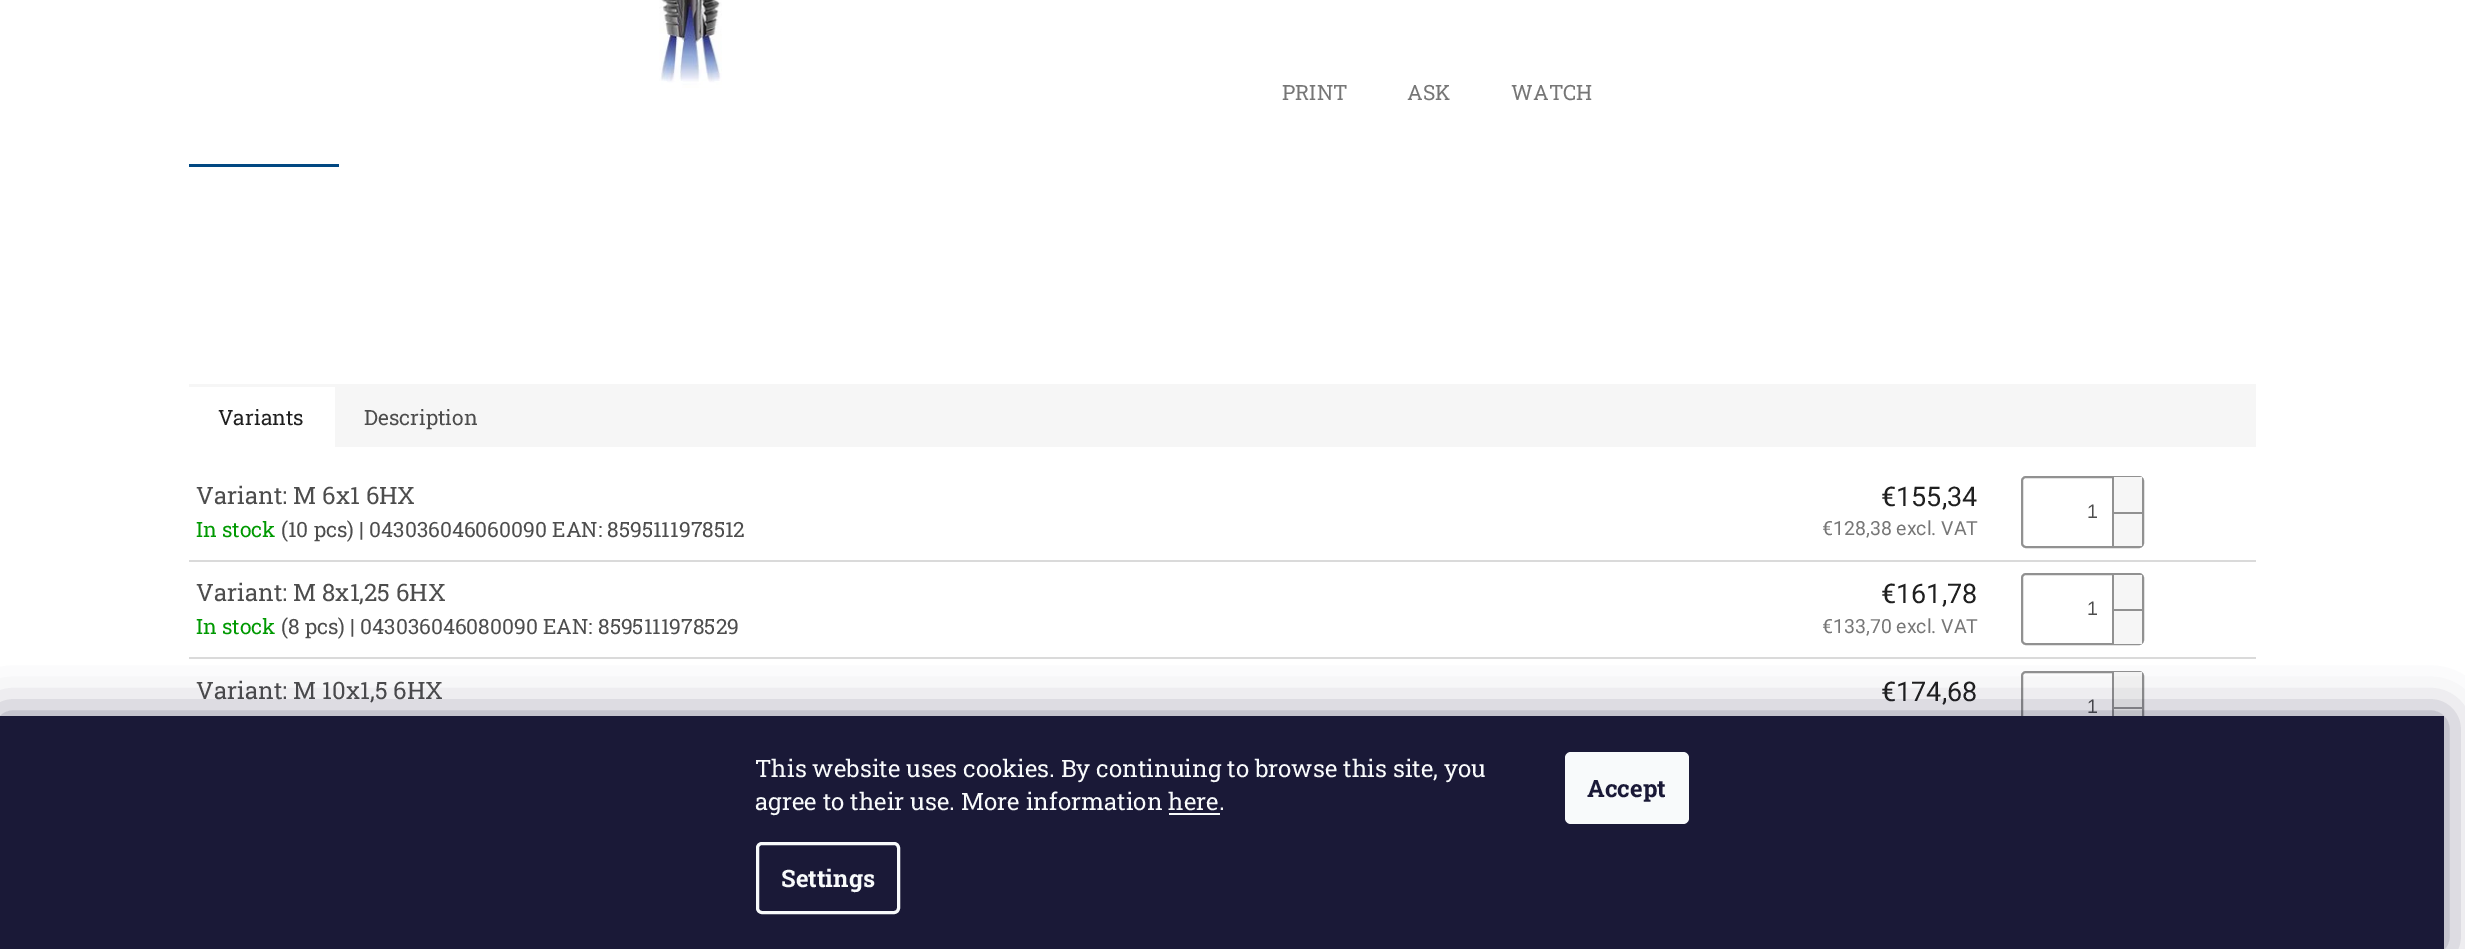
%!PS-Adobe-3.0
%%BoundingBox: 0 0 2465 949
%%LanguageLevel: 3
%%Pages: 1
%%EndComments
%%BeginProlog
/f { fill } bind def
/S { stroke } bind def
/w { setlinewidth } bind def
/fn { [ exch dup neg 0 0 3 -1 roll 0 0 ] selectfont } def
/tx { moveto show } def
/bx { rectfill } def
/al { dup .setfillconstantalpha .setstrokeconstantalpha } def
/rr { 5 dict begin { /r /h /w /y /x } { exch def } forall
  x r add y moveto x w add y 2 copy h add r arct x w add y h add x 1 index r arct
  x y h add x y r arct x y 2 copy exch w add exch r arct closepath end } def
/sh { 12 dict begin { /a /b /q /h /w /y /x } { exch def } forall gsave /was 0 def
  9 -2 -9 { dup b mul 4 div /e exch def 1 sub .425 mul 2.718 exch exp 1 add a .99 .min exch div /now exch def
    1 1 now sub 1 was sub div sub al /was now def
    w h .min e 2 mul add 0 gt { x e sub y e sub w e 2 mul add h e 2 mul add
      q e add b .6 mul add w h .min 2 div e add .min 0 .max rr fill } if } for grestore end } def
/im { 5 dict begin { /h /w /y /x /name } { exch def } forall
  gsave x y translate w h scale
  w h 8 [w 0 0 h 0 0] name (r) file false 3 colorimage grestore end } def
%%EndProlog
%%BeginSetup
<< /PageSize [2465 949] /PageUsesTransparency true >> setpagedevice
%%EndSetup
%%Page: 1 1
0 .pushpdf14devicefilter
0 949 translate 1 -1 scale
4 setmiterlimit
1 setgray
0 0 2465 949 bx
(image0.raw) 659 0 63 88 im
0.004 0.282 0.51 setrgbcolor
189 164 150 3 bx
/RobotoSlab-Regular 21 fn
0.463 setgray
(PRINT) 1282 100 tx
(ASK) 1407 100 tx
(WATCH) 1511 100 tx
0.965 setgray
335 384 1921 63 bx
189 384 146 3 bx
0.122 setgray
(Variants) 218 425 tx
0.302 setgray
(Description) 364 425 tx
0.855 setgray
189 560 2067 2 bx
/RobotoSlab-Regular 24 fn
0.302 setgray
(Variant: M 6x1 6HX) 196 504 tx
/RobotoSlab-Regular 21 fn
0 0.6 0.004 setrgbcolor
(In stock) 196 537 tx
0.302 setgray
(\(10 pcs\) | 043036046060090 EAN: 8595111978512) 281 537 tx
/Roboto-Regular 27 fn
0.122 setgray
(€155,34) 1881 506 tx
/Roboto-Regular 19.5 fn
0.463 setgray
(€128,38 excl. VAT) 1822 535 tx
0.569 setgray
2 w
2022 477 121 70 4 rr S
/LiberationSans-Regular 19.5 fn
0.302 setgray
(1) 2087 518 tx
0.965 setgray
2114 477 28 35 bx
0.569 setgray
2112 477 2 35 bx
0.965 setgray
2114 514 28 32 bx
0.569 setgray
2112 512 30 2 bx
2112 512 2 34 bx
0.855 setgray
189 657 2067 2 bx
/RobotoSlab-Regular 24 fn
0.302 setgray
(Variant: M 8x1,25 6HX) 196 601 tx
/RobotoSlab-Regular 21 fn
0 0.6 0.004 setrgbcolor
(In stock) 196 634 tx
0.302 setgray
(\(8 pcs\) | 043036046080090 EAN: 8595111978529) 281 634 tx
/Roboto-Regular 27 fn
0.122 setgray
(€161,78) 1881 603 tx
/Roboto-Regular 19.5 fn
0.463 setgray
(€133,70 excl. VAT) 1822 633 tx
0.569 setgray
2022 574 121 70 4 rr S
/LiberationSans-Regular 19.5 fn
0.302 setgray
(1) 2087 615 tx
0.965 setgray
2114 575 28 34 bx
0.569 setgray
2112 575 2 34 bx
0.965 setgray
2114 611 28 33 bx
0.569 setgray
2112 609 30 2 bx
2112 609 2 35 bx
/RobotoSlab-Regular 24 fn
0.302 setgray
(Variant: M 10x1,5 6HX) 196 699 tx
/Roboto-Regular 27 fn
0.122 setgray
(€174,68) 1881 701 tx
0.569 setgray
2022 672 121 70 4 rr S
/LiberationSans-Regular 19.5 fn
0.302 setgray
(1) 2087 713 tx
0.965 setgray
2114 672 28 35 bx
0.569 setgray
2112 672 2 35 bx
0.965 setgray
2114 709 28 7 bx
0.569 setgray
2112 707 30 2 bx
2112 707 2 9 bx
0.106 0.098 0.224 setrgbcolor
0 716 2444 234 0 22.5 0.5 sh
0.102 0.098 0.216 setrgbcolor
0 716 2444 233 bx
/RobotoSlab-Regular 24 fn
0.973 0.98 0.984 setrgbcolor
(This website uses cookies. By continuing to browse this site, you) 755 777 tx
(agree to their use. More information here.) 755 810 tx
1169 813 51 2 bx
3 w
757.5 843.5 141 69 4.5 rr S
/RobotoSlab-Bold 24 fn
(Settings) 781 887 tx
1565 752 124 72 6 rr f
0.102 0.098 0.216 setrgbcolor
(Accept) 1587 797 tx
.poppdf14devicefilter showpage
%%EOF
